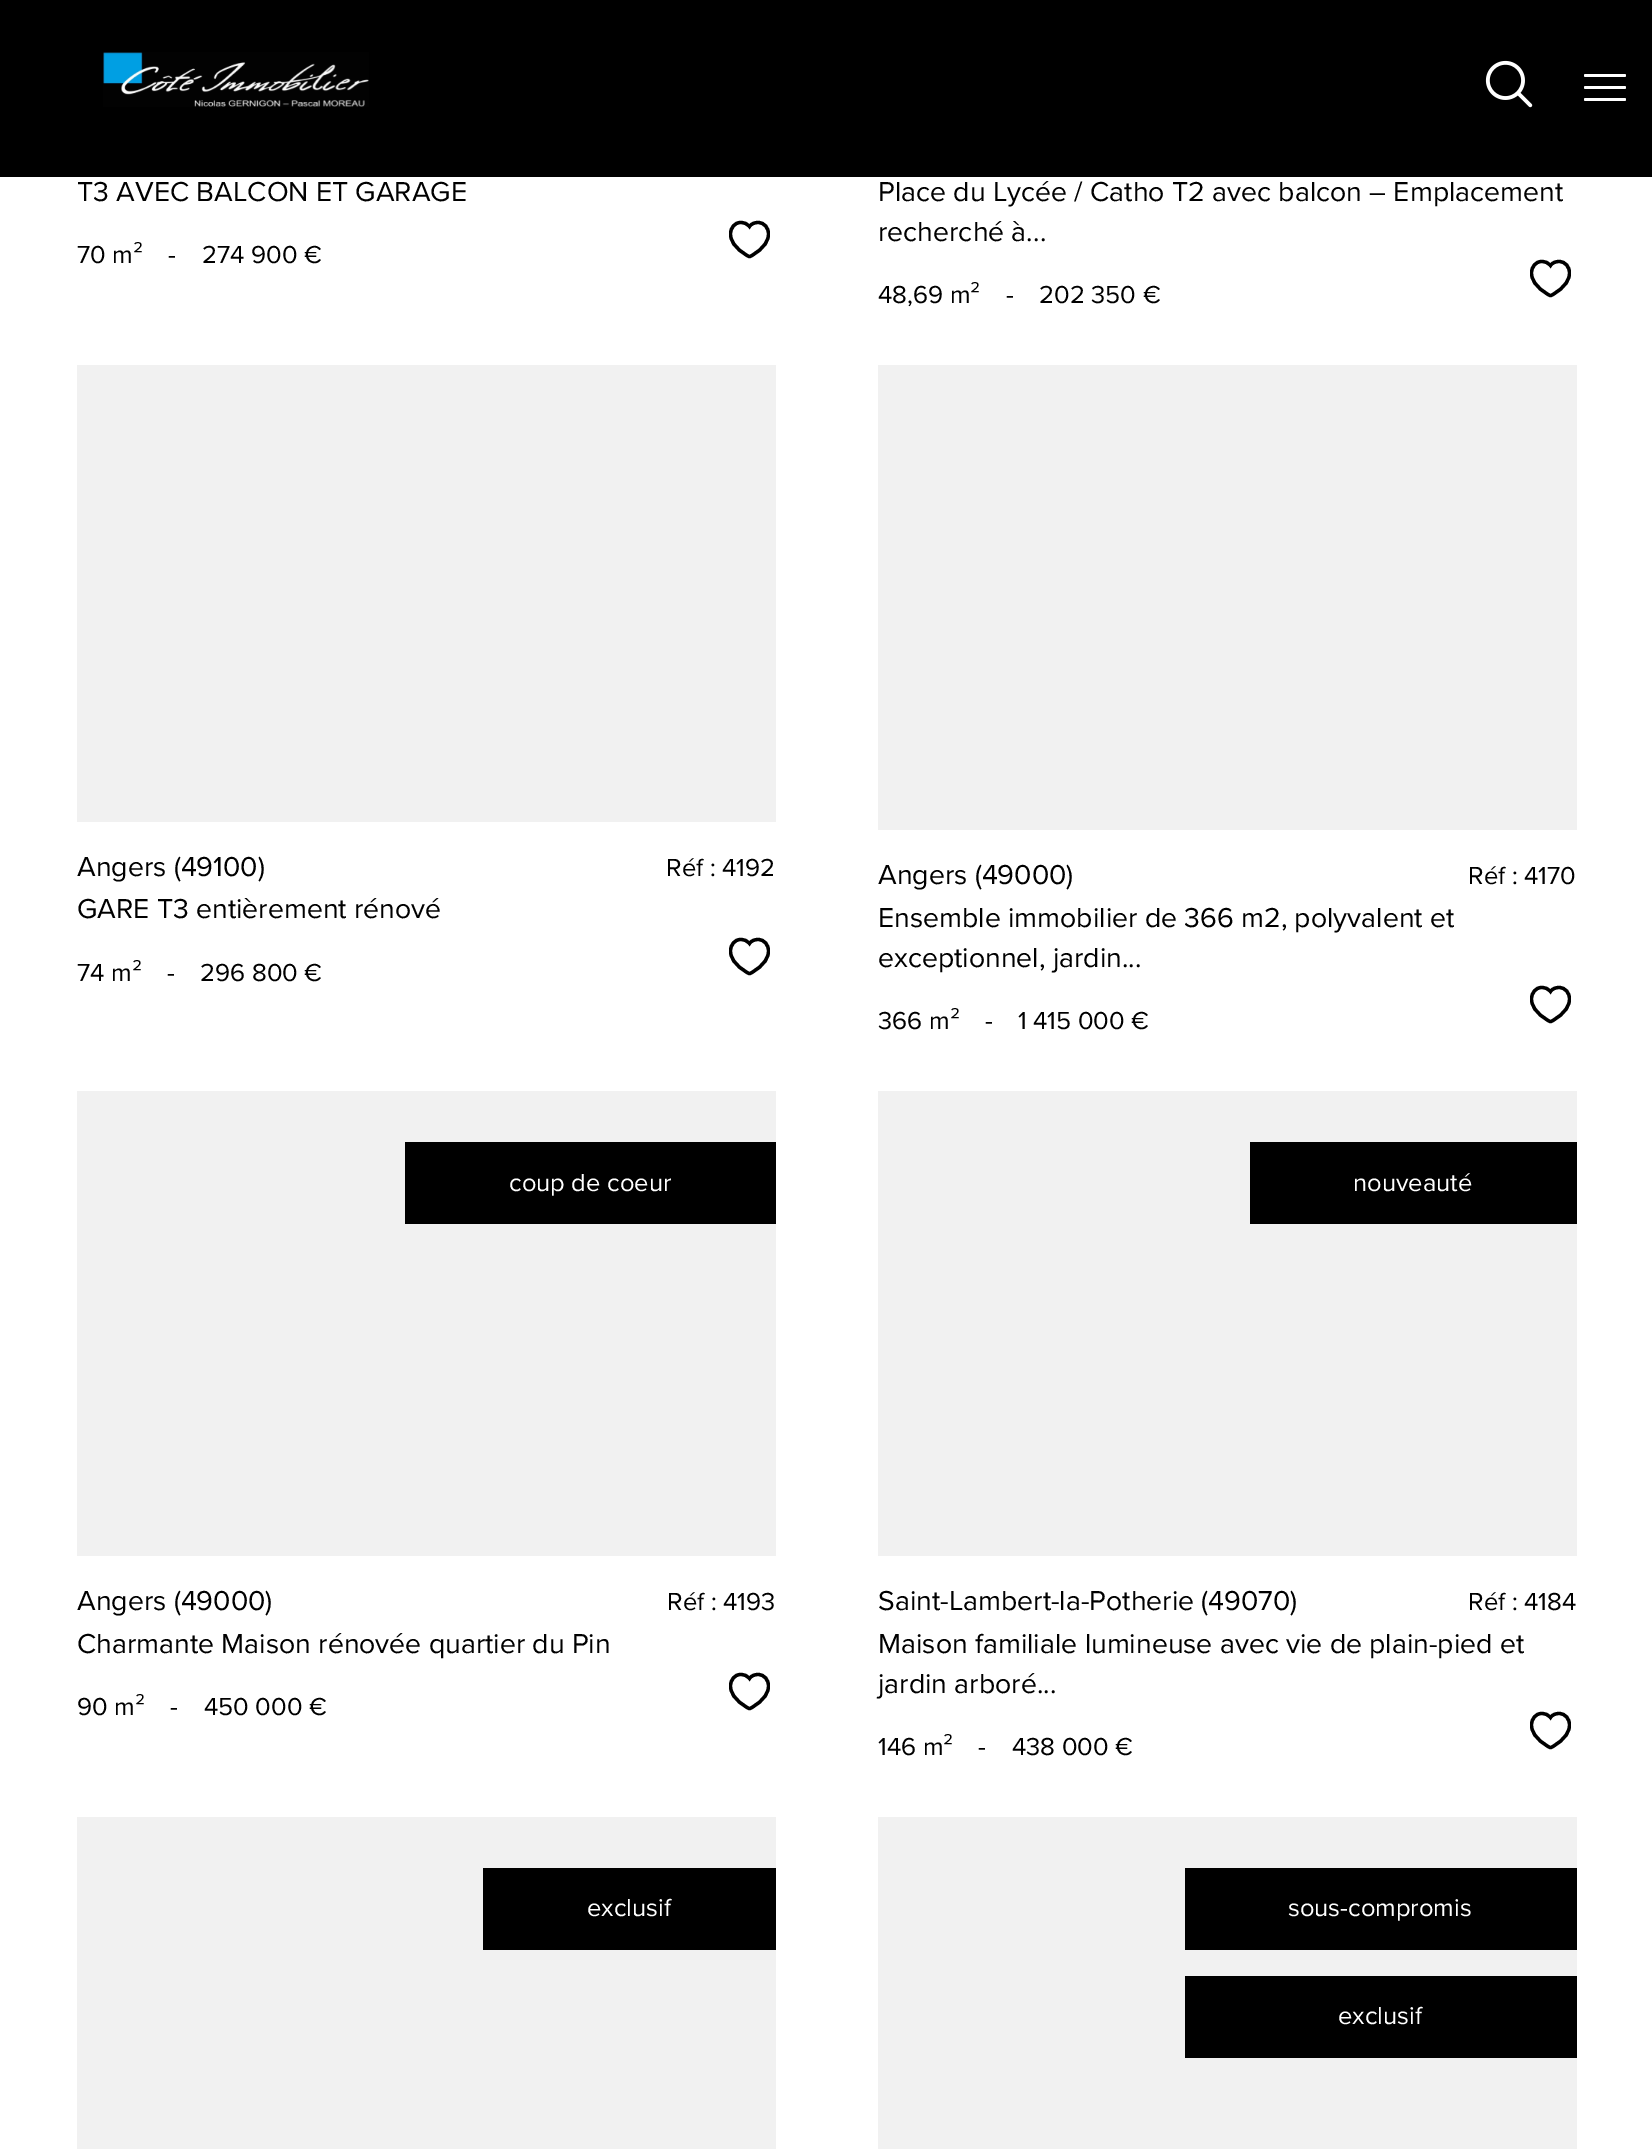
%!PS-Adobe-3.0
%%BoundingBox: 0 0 1652 2149
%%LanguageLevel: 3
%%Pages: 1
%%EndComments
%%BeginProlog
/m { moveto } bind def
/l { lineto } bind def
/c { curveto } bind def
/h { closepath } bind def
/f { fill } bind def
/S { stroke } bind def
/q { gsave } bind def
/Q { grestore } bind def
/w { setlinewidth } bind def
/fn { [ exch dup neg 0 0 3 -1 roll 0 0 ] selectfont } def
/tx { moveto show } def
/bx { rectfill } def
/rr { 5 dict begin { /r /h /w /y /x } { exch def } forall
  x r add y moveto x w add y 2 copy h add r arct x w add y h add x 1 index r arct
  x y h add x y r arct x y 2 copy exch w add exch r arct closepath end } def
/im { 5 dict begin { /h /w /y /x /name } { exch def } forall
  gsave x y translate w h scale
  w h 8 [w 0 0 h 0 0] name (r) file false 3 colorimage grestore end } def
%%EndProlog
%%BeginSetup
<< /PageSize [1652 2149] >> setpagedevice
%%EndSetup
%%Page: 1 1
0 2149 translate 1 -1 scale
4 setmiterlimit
1 setgray
0 0 1652 2149 bx
0 setgray
0 0 1652 177 bx
(image0.raw) 103 52 266 55 im
(image1.raw) 1485 60 48 48 im
1 setgray
1584 86 42 3 1.5 rr f
1584 74 42 3 1.5 rr f
1584 98 42 3 1.5 rr f
/ProximaNova-Regular 28.4 fn
0 setgray
(T3 AVEC BALCON ET GARAGE) 77 201 tx
/ProximaNova-Regular 25.5 fn
(70 m²) 77 263 tx
(-) 168 263 tx
(274 900 €) 202 263 tx
q
729 219 41 41 rectclip
3.3 w
758 222.5 m 755 222.5 751.5 223.5 749.5 226.5 c 747 223.5 744 222.5 740.5 222.5 c 735 222.5 730.5 227.5 730.5 234 c 730.5 239 733 248 749 256.5 c 750 256.5 l 766 248 768.5 239 768.5 234 c 768.5 228 764.5 222.5 758 222.5 c h S
Q
/ProximaNova-Regular 28.4 fn
(Place du Lycée / Catho T2 avec balcon – Emplacement) 878 201 tx
(recherché à...) 878 241 tx
/ProximaNova-Regular 25.5 fn
(48,69 m²) 878 303 tx
(-) 1006 303 tx
(202 350 €) 1039 303 tx
q
1530 258 41 41 rectclip
3.3 w
1559 261.5 m 1556 261.5 1552.5 262.5 1550.5 265.5 c 1548 262.5 1545 261.5 1541.5 261.5 c 1536 261.5 1531.5 266.5 1531.5 273 c 1531.5 278 1534 287 1550 295.5 c 1551 295.5 l 1567 287 1569.5 278 1569.5 273 c 1569.5 267 1565.5 261.5 1559 261.5 c h S
Q
0.945 setgray
77 365 699 457 bx
/ProximaNova-Regular 28.4 fn
0 setgray
(Angers \(49100\)) 77 876 tx
(GARE T3 entièrement rénové) 77 918 tx
/ProximaNova-Regular 25.5 fn
(Réf : 4192) 666 876 tx
(74 m²) 77 981 tx
(-) 167 981 tx
(296 800 €) 200 981 tx
q
729 936 41 41 rectclip
3.3 w
758 939.5 m 755 939.5 751.5 940.5 749.5 943.5 c 747 940.5 744 939.5 740.5 939.5 c 735 939.5 730.5 944.5 730.5 951 c 730.5 956 733 965 749 973.5 c 750 973.5 l 766 965 768.5 956 768.5 951 c 768.5 945 764.5 939.5 758 939.5 c h S
Q
0.945 setgray
878 365 699 465 bx
/ProximaNova-Regular 28.4 fn
0 setgray
(Angers \(49000\)) 878 884 tx
(Ensemble immobilier de 366 m2, polyvalent et) 878 927 tx
(exceptionnel, jardin...) 878 967 tx
/ProximaNova-Regular 25.5 fn
(Réf : 4170) 1468 884 tx
(366 m²) 878 1029 tx
(-) 985 1029 tx
(1 415 000 €) 1018 1029 tx
q
1530 984 41 41 rectclip
3.3 w
1559 987.5 m 1556 987.5 1552.5 988.5 1550.5 991.5 c 1548 988.5 1545 987.5 1541.5 987.5 c 1536 987.5 1531.5 992.5 1531.5 999 c 1531.5 1004 1534 1013 1550 1021.5 c 1551 1021.5 l 1567 1013 1569.5 1004 1569.5 999 c 1569.5 993 1565.5 987.5 1559 987.5 c h S
Q
0.945 setgray
77 1091 699 465 bx
0 setgray
405 1142 371 82 bx
1 setgray
(coup de coeur) 509 1191 tx
/ProximaNova-Regular 28.4 fn
0 setgray
(Angers \(49000\)) 77 1610 tx
(Charmante Maison rénovée quartier du Pin) 77 1653 tx
/ProximaNova-Regular 25.5 fn
(Réf : 4193) 667 1610 tx
(90 m²) 77 1715 tx
(-) 170 1715 tx
(450 000 €) 204 1715 tx
q
729 1671 41 41 rectclip
3.3 w
758 1674.5 m 755 1674.5 751.5 1675.5 749.5 1678.5 c 747 1675.5 744 1674.5 740.5 1674.5 c 735 1674.5 730.5 1679.5 730.5 1686 c 730.5 1691 733 1700 749 1708.5 c 750 1708.5 l 766 1700 768.5 1691 768.5 1686 c 768.5 1680 764.5 1674.5 758 1674.5 c h S
Q
0.945 setgray
878 1091 699 465 bx
0 setgray
1250 1142 327 82 bx
1 setgray
(nouveauté) 1353 1191 tx
/ProximaNova-Regular 28.4 fn
0 setgray
(Saint-Lambert-la-Potherie \(49070\)) 878 1610 tx
(Maison familiale lumineuse avec vie de plain-pied et) 878 1653 tx
(jardin arboré...) 878 1693 tx
/ProximaNova-Regular 25.5 fn
(Réf : 4184) 1468 1610 tx
(146 m²) 878 1755 tx
(-) 978 1755 tx
(438 000 €) 1012 1755 tx
q
1530 1710 41 41 rectclip
3.3 w
1559 1713.5 m 1556 1713.5 1552.5 1714.5 1550.5 1717.5 c 1548 1714.5 1545 1713.5 1541.5 1713.5 c 1536 1713.5 1531.5 1718.5 1531.5 1725 c 1531.5 1730 1534 1739 1550 1747.5 c 1551 1747.5 l 1567 1739 1569.5 1730 1569.5 1725 c 1569.5 1719 1565.5 1713.5 1559 1713.5 c h S
Q
0.945 setgray
77 1817 699 332 bx
0 setgray
483 1868 293 82 bx
1 setgray
(exclusif) 587 1916 tx
0.945 setgray
878 1817 699 332 bx
0 setgray
1185 1868 392 82 bx
1 setgray
(sous-compromis) 1288 1916 tx
0 setgray
1185 1976 392 82 bx
1 setgray
(exclusif) 1338 2024 tx
showpage
%%EOF
